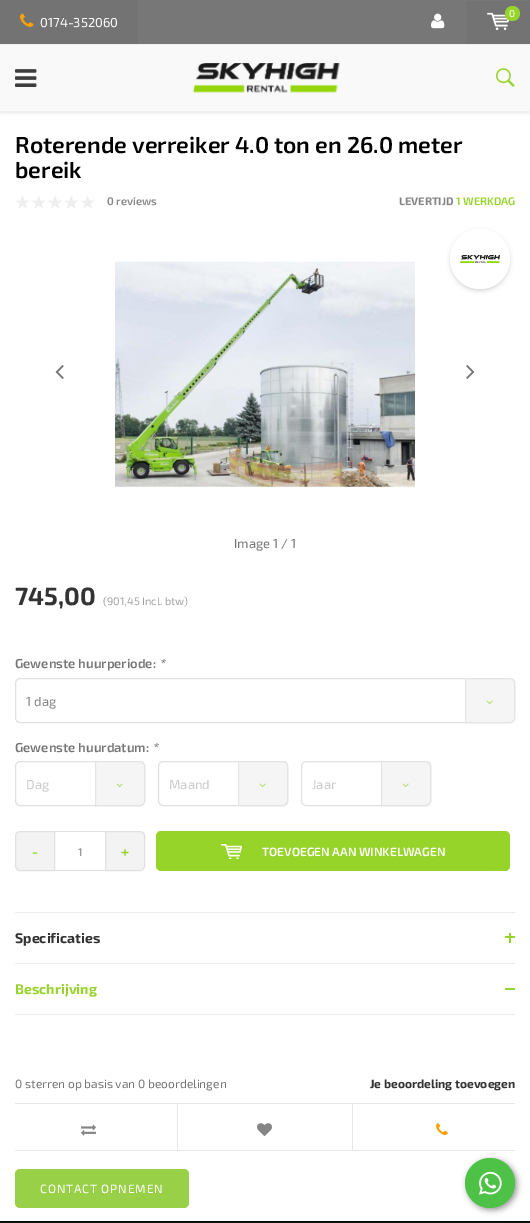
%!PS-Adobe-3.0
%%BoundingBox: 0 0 530 1223
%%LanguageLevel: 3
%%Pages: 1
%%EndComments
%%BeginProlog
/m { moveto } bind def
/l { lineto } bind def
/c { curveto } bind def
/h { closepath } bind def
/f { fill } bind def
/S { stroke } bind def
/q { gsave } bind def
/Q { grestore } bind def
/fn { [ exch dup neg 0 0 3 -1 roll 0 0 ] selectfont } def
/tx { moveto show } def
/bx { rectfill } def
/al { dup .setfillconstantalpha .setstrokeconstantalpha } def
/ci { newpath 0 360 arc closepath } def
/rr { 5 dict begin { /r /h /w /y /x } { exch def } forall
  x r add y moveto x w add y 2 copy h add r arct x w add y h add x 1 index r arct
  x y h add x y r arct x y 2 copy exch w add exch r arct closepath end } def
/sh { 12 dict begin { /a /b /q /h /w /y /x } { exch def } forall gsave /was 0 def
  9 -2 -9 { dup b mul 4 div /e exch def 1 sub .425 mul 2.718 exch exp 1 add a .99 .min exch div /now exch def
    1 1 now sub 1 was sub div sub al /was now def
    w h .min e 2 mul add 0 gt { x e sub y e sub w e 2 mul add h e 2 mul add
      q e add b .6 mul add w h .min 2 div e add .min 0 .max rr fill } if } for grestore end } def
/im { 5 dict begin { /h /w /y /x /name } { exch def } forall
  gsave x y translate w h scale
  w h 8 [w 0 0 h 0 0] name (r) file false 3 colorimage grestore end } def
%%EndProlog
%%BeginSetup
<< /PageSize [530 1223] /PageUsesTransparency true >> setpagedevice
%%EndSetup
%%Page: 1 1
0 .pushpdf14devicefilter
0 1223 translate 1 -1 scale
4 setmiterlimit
1 setgray
0 0 530 1223 bx
0 setgray
1 1 528 110 0 2.5 0.2 sh
0.467 setgray
138 0 392 44 bx
(image0.raw) 431 13 14 16 im
0.451 setgray
467 1 63 43 bx
(image1.raw) 487 12 23 19 im
0.588 0.831 0.161 setrgbcolor
512.5 13.5 7.5 ci f
/Exo2-Regular 10 fn
1 setgray
(0) 509 17 tx
0.451 setgray
0 0 138 44 bx
(image2.raw) 20 13 14 14 im
/Exo2-Regular 13 fn
1 setgray
(0174-352060) 40 27 tx
0.976 setgray
0 45 530 66 bx
0.937 setgray
0 44 530 1 bx
0 111 530 1 bx
(image3.raw) 15 69 22 18 im
(image4.raw) 193 63 147 30 im
(image5.raw) 496 68 19 19 im
/Exo2-SemiBold 23 fn
0 setgray
(Roterende verreiker 4.0 ton en 26.0 meter) 15 153 tx
(bereik) 15 178 tx
0.933 setgray
15 195 80 14 bx
(image6.raw) 15 195 80 14 im
/Exo2-SemiBold 11 fn
0.522 setgray
(0 reviews) 107 205 tx
/Exo2-Bold 11 fn
(LEVERTIJD) 399 205 tx
/Exo2-SemiBold 11 fn
0.588 0.831 0.161 setrgbcolor
(1 WERKDAG) 456 205 tx
(image7.raw) 115 261 300 229 im
(image8.raw) 55 365 9 14 im
(image9.raw) 466 365 9 14 im
0 setgray
451 232 58 58 29 2.5 0.2 sh
1 setgray
480 259 30 ci f
(image10.raw) 460 255 40 9 im
/Exo2-Regular 13 fn
0.459 setgray
(Image 1 / 1) 234 548 tx
/Exo2-Bold 25 fn
0.2 setgray
(745,00) 15 605 tx
/Exo2-Regular 11 fn
0.635 setgray
(\(901,45 Incl. btw\)) 103 605 tx
/Exo2-SemiBold 13 fn
0.459 setgray
(Gewenste huurperiode:) 15 668 tx
/Exo2-SemiBoldItalic 13 fn
(*) 159 668 tx
0.882 setgray
15.5 678.5 499 44 4.5 rr S
/Exo2-Regular 13 fn
0.522 setgray
(1 dag) 26 706 tx
0.8 al
0.953 setgray
465 678 m 510 678 l 513 678 515 680 515 683 c 515 718 l 515 721 513 723 510 723 c 465 723 l h f
0.882 setgray
465.5 678.5 m 510 678.5 l 512.5 678.5 514.5 680.5 514.5 683 c 514.5 718 l 514.5 720.5 512.5 722.5 510 722.5 c 465.5 722.5 l h S
1 al
(image11.raw) 486 700 7 5 im
/Exo2-SemiBold 13 fn
0.459 setgray
(Gewenste huurdatum:) 15 752 tx
/Exo2-SemiBoldItalic 13 fn
(*) 152 752 tx
0.882 setgray
15.5 761.5 129 44 4.5 rr S
/Exo2-Regular 13 fn
0.792 setgray
(Dag) 26 789 tx
0.8 al
0.953 setgray
95 761 m 140 761 l 143 761 145 763 145 766 c 145 801 l 145 804 143 806 140 806 c 95 806 l h f
0.882 setgray
95.5 761.5 m 140 761.5 l 142.5 761.5 144.5 763.5 144.5 766 c 144.5 801 l 144.5 803.5 142.5 805.5 140 805.5 c 95.5 805.5 l h S
1 al
(image11.raw) 116 783 7 5 im
158.5 761.5 129 44 4.5 rr S
0.792 setgray
(Maand) 169 789 tx
0.8 al
0.953 setgray
238 761 m 283 761 l 286 761 288 763 288 766 c 288 801 l 288 804 286 806 283 806 c 238 806 l h f
0.882 setgray
238.5 761.5 m 283 761.5 l 285.5 761.5 287.5 763.5 287.5 766 c 287.5 801 l 287.5 803.5 285.5 805.5 283 805.5 c 238.5 805.5 l h S
1 al
(image11.raw) 259 783 7 5 im
301.5 761.5 129 44 4.5 rr S
0.792 setgray
(Jaar) 312 789 tx
0.8 al
0.953 setgray
381 761 m 426 761 l 429 761 431 763 431 766 c 431 801 l 431 804 429 806 426 806 c 381 806 l h f
0.882 setgray
381.5 761.5 m 426 761.5 l 428.5 761.5 430.5 763.5 430.5 766 c 430.5 801 l 430.5 803.5 428.5 805.5 426 805.5 c 381.5 805.5 l h S
1 al
(image11.raw) 402 783 7 5 im
0.953 setgray
20 831.5 m 54.5 831.5 l 54.5 870.5 l 20 870.5 l 17.5 870.5 15.5 868.5 15.5 866 c 15.5 836 l 15.5 833.5 17.5 831.5 20 831.5 c h q f Q
0.882 setgray
S
/Exo2-Bold 15 fn
0.588 0.831 0.161 setrgbcolor
(-) 32 857 tx
0.882 setgray
55 831 50 1 bx
55 870 50 1 bx
/Exo2-Regular 11 fn
0.459 setgray
(1) 78 856 tx
0.953 setgray
105.5 831.5 m 140 831.5 l 142.5 831.5 144.5 833.5 144.5 836 c 144.5 866 l 144.5 868.5 142.5 870.5 140 870.5 c 105.5 870.5 l h q f Q
0.882 setgray
S
/Exo2-Bold 15 fn
0.588 0.831 0.161 setrgbcolor
(+) 121 857 tx
156 831 354 40 5 rr f
(image12.raw) 221 844 21 15 im
/Exo2-SemiBold 12 fn
1 setgray
(TOEVOEGEN AAN WINKELWAGEN) 262 856 tx
0.925 setgray
15 912 500 1 bx
15 963 500 1 bx
/Exo2-Bold 14 fn
0.2 setgray
(Specificaties) 15 943 tx
0.588 0.831 0.161 setrgbcolor
505 936 10 2 bx
509 933 2 10 bx
0.925 setgray
15 1014 500 1 bx
0.588 0.831 0.161 setrgbcolor
(Beschrijving) 15 994 tx
505 988 10 2 bx
/Exo2-Regular 12 fn
0.459 setgray
(0 sterren op basis van 0 beoordelingen) 15 1088 tx
/Exo2-Bold 12 fn
0.2 setgray
(Je beoordeling toevoegen) 370 1088 tx
0.902 setgray
15 1103 500 1 bx
15 1150 500 1 bx
(image13.raw) 81 1124 15 12 im
352 1104 1 46 bx
177 1104 1 46 bx
(image14.raw) 257 1123 15 13 im
(image15.raw) 436 1123 12 12 im
0.596 0.816 0.278 setrgbcolor
15 1169 174 39 5 rr f
/Exo2-Regular 12 fn
1 setgray
40 1193 m 0.9 0 (CONTACT OPNEMEN) ashow
0 setgray
467 1160 50 50 25 3 0.4 sh
0.302 0.761 0.278 setrgbcolor
490 1183 25 ci f
(image16.raw) 479 1171 23 24 im
0.055 setgray
0 1221 530 2 bx
.poppdf14devicefilter showpage
%%EOF
